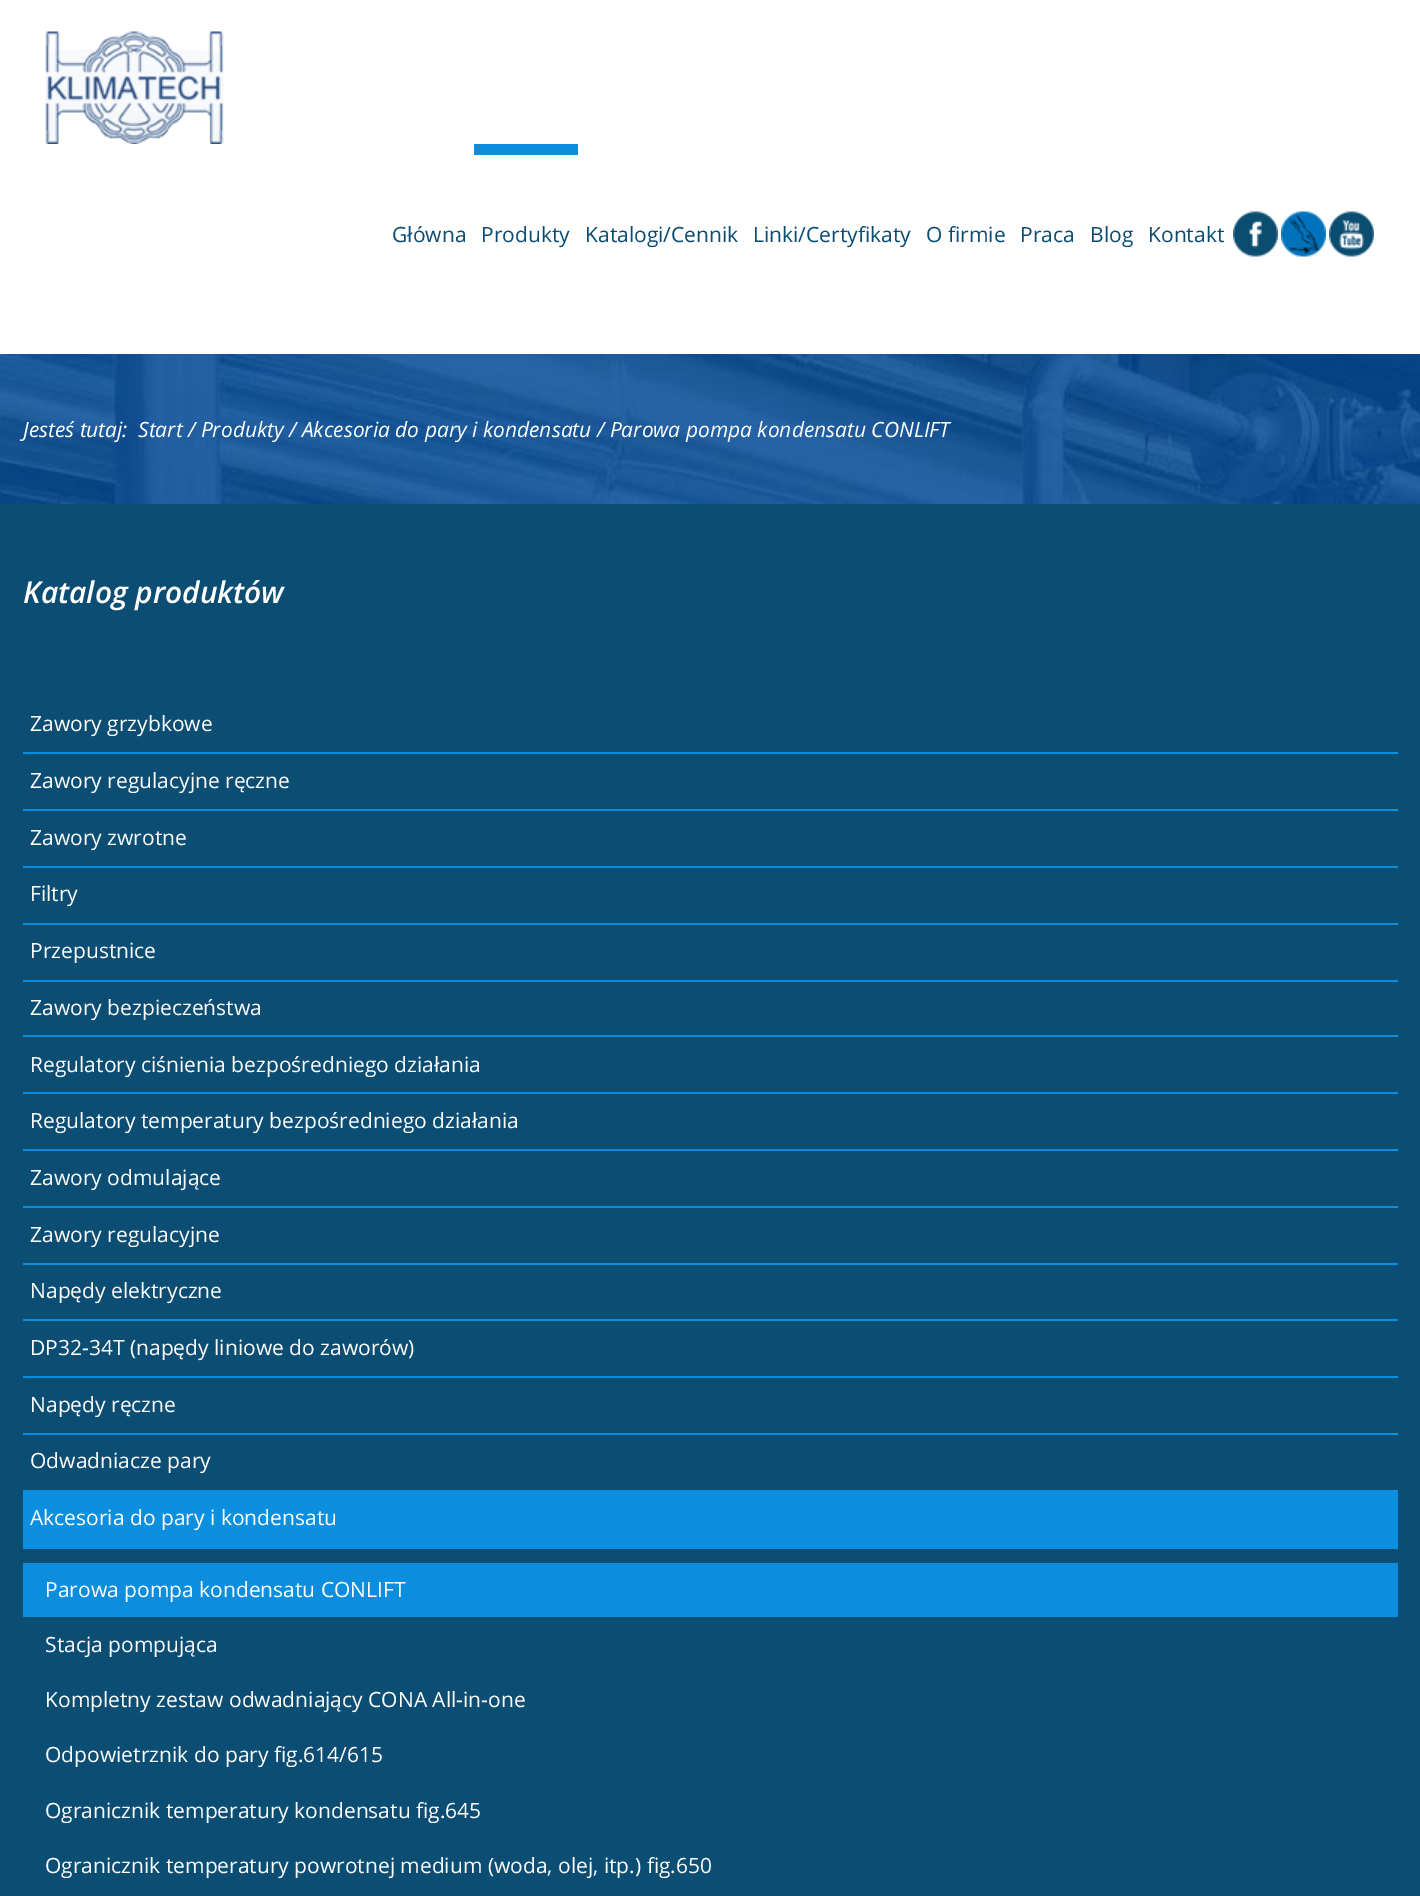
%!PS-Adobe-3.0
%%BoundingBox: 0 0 1420 1896
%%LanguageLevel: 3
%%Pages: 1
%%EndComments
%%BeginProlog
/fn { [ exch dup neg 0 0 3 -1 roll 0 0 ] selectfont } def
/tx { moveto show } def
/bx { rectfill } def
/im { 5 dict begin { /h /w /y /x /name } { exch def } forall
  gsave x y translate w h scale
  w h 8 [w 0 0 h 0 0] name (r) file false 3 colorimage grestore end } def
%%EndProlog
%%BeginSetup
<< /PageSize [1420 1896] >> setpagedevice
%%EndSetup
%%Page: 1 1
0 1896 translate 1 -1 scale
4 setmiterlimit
1 setgray
0 0 1420 1896 bx
(image0.raw) 45 31 179 113 im
/OpenSans-Regular 21 fn
0.043 0.302 0.443 setrgbcolor
(Główna) 392 242 tx
0.047 0.553 0.867 setrgbcolor
474 144 104 11 bx
0.043 0.302 0.443 setrgbcolor
(Produkty) 481 242 tx
(Katalogi/Cennik) 585 242 tx
(Linki/Certyfikaty) 753 242 tx
(O firmie) 926 242 tx
(Praca) 1020 242 tx
(Blog) 1090 242 tx
(Kontakt) 1148 242 tx
(image1.raw) 1233 211 45 46 im
(image2.raw) 1281 211 45 46 im
(image3.raw) 1329 211 45 46 im
(image4.raw) 0 354 1420 150 im
/OpenSans-Italic 21 fn
1 setgray
(Jesteś tutaj:) 23 437 tx
(Start / Produkty / Akcesoria do pary i kondensatu / Parowa pompa kondensatu CONLIFT) 138 437 tx
0.043 0.302 0.451 setrgbcolor
0 504 1420 1392 bx
/OpenSans-SemiBoldItalic 30 fn
1 setgray
(Katalog produktów) 23 603 tx
0.047 0.553 0.867 setrgbcolor
23 752 1375 2 bx
/OpenSans-Regular 21 fn
1 setgray
(Zawory grzybkowe) 30 731 tx
0.047 0.553 0.867 setrgbcolor
23 809 1375 2 bx
1 setgray
(Zawory regulacyjne ręczne) 30 788 tx
0.047 0.553 0.867 setrgbcolor
23 866 1375 2 bx
1 setgray
(Zawory zwrotne) 30 845 tx
0.047 0.553 0.867 setrgbcolor
23 923 1375 2 bx
1 setgray
(Filtry) 30 901 tx
0.047 0.553 0.867 setrgbcolor
23 980 1375 2 bx
1 setgray
(Przepustnice) 30 958 tx
0.047 0.553 0.867 setrgbcolor
23 1035 1375 2 bx
1 setgray
(Zawory bezpieczeństwa) 30 1015 tx
0.047 0.553 0.867 setrgbcolor
23 1092 1375 2 bx
1 setgray
(Regulatory ciśnienia bezpośredniego działania) 30 1072 tx
0.047 0.553 0.867 setrgbcolor
23 1149 1375 2 bx
1 setgray
(Regulatory temperatury bezpośredniego działania) 30 1128 tx
0.047 0.553 0.867 setrgbcolor
23 1206 1375 2 bx
1 setgray
(Zawory odmulające) 30 1185 tx
0.047 0.553 0.867 setrgbcolor
23 1263 1375 2 bx
1 setgray
(Zawory regulacyjne) 30 1242 tx
0.047 0.553 0.867 setrgbcolor
23 1319 1375 2 bx
1 setgray
(Napędy elektryczne) 30 1298 tx
0.047 0.553 0.867 setrgbcolor
23 1376 1375 2 bx
1 setgray
(DP32-34T \(napędy liniowe do zaworów\)) 30 1355 tx
0.047 0.553 0.867 setrgbcolor
23 1433 1375 2 bx
1 setgray
(Napędy ręczne) 30 1412 tx
0.047 0.553 0.867 setrgbcolor
23 1490 1375 1 bx
1 setgray
(Odwadniacze pary) 30 1468 tx
0.051 0.561 0.878 setrgbcolor
23 1491 1375 56 bx
0.047 0.553 0.867 setrgbcolor
23 1547 1375 2 bx
1 setgray
(Akcesoria do pary i kondensatu) 30 1525 tx
0.047 0.553 0.867 setrgbcolor
23 1563 1375 54 bx
1 setgray
(Parowa pompa kondensatu CONLIFT) 45 1597 tx
(Stacja pompująca) 45 1652 tx
(Kompletny zestaw odwadniający CONA All-in-one) 45 1707 tx
(Odpowietrznik do pary fig.614/615) 45 1762 tx
(Ogranicznik temperatury kondensatu fig.645) 45 1818 tx
(Ogranicznik temperatury powrotnej medium \(woda, olej, itp.\) fig.650) 45 1873 tx
showpage
%%EOF
